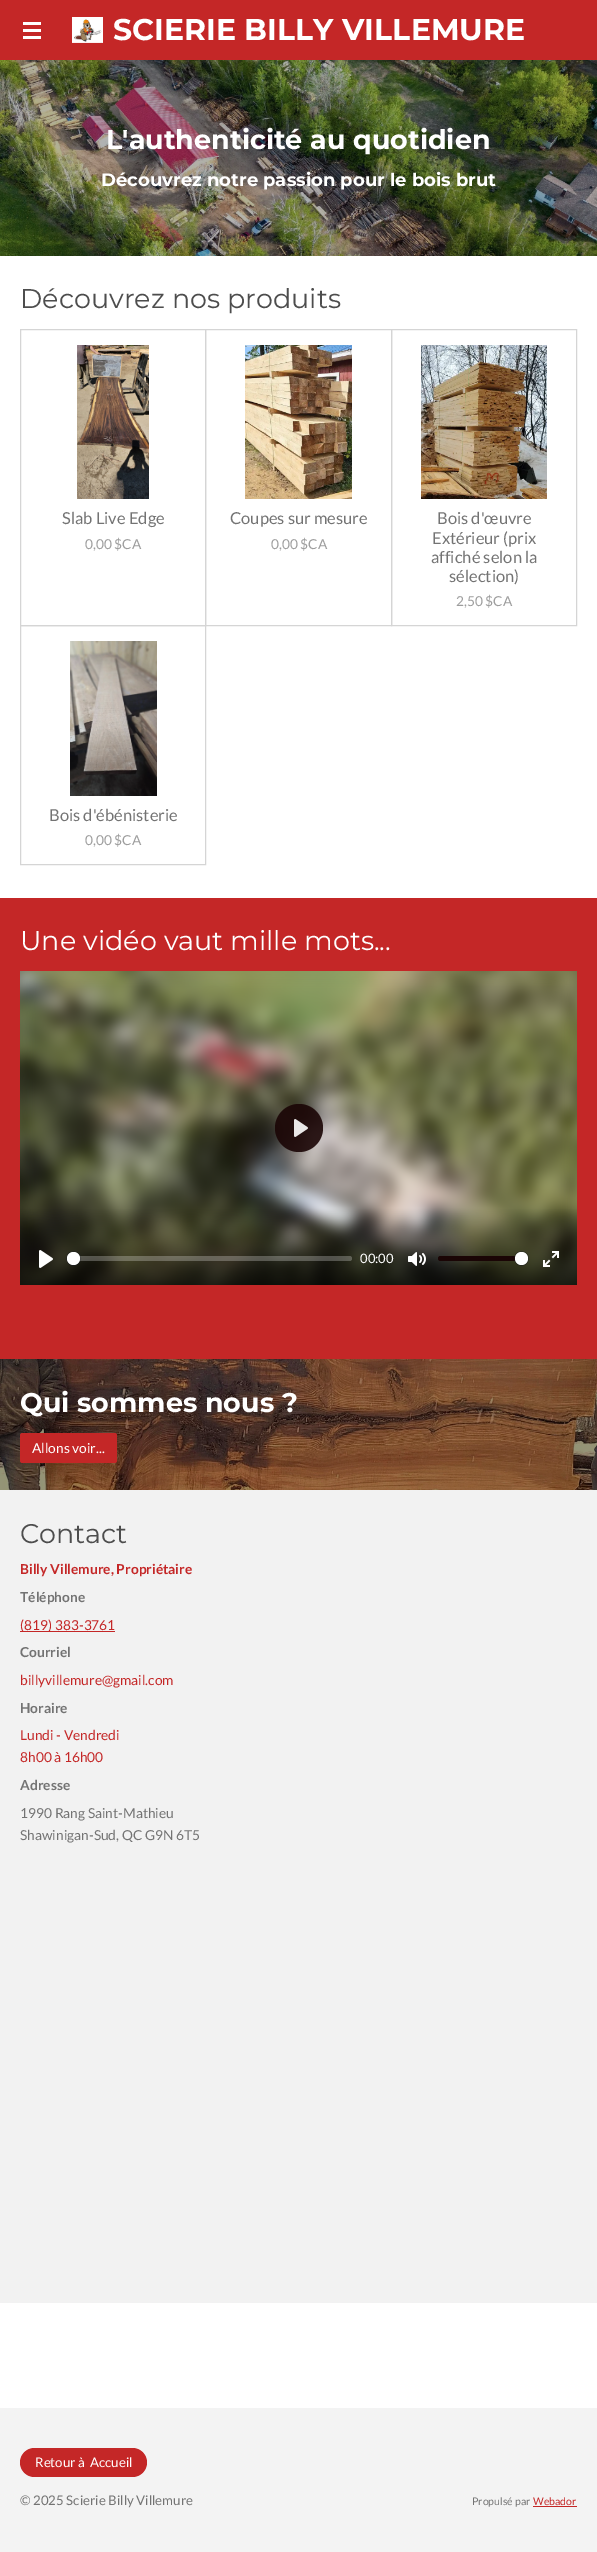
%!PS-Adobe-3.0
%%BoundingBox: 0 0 597 2552
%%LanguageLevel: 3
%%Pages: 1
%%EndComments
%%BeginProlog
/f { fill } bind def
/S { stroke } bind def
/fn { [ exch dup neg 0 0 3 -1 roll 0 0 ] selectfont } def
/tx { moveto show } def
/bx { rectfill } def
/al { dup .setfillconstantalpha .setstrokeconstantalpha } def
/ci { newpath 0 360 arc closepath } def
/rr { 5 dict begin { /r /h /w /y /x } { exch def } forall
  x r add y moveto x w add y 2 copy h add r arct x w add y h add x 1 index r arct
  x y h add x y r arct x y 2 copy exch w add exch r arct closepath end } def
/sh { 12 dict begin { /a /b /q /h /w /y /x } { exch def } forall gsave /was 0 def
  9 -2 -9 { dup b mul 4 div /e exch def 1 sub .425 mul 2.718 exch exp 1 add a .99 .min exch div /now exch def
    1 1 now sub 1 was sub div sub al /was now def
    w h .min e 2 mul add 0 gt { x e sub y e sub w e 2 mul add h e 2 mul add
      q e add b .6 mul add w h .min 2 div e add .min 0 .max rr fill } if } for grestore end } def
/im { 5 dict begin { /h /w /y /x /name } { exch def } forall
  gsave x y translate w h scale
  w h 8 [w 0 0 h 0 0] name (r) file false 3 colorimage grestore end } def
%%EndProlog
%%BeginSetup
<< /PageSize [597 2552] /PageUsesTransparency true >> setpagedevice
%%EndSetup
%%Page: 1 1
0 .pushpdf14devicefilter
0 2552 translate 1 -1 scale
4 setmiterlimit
1 setgray
0 0 597 2552 bx
0.769 0.153 0.153 setrgbcolor
0 0 597 60 bx
1 setgray
23 29 18 3 bx
23 22 18 3 bx
23 36 18 3 bx
(image0.raw) 72 17 31 26 im
/Montserrat-Bold 30 fn
(SCIERIE BILLY VILLEMURE) 113 40 tx
(image1.raw) 0 60 597 196 im
/Montserrat-Bold 27 fn
(L'authenticité au quotidien) 106 149 tx
/Montserrat-Bold 18 fn
(Découvrez notre passion pour le bois brut) 101 186 tx
/Montserrat-Regular 27 fn
0.302 setgray
(Découvrez nos produits) 20 308 tx
0.835 setgray
20.5 329.5 185 296 rectstroke
(image2.raw) 77 345 72 154 im
/Lato-Regular 16.5 fn
0.451 setgray
(Slab Live Edge) 62 524 tx
/Lato-Regular 13.75 fn
0.616 setgray
(0,00 $CA) 85 549 tx
0.835 setgray
205.5 329.5 186 296 rectstroke
(image3.raw) 245 345 107 154 im
/Lato-Regular 16.5 fn
0.451 setgray
(Coupes sur mesure) 230 524 tx
/Lato-Regular 13.75 fn
0.616 setgray
(0,00 $CA) 271 549 tx
0.835 setgray
391.5 329.5 185 296 rectstroke
(image4.raw) 421 345 126 154 im
/Lato-Regular 16.5 fn
0.451 setgray
(Bois d'œuvre) 437 524 tx
(Extérieur \(prix) 432 544 tx
(affiché selon la) 431 563 tx
(sélection\)) 449 582 tx
/Lato-Regular 13.75 fn
0.616 setgray
(2,50 $CA) 456 606 tx
0.835 setgray
20.5 625.5 185 239 rectstroke
(image5.raw) 70 641 87 155 im
/Lato-Regular 16.5 fn
0.451 setgray
(Bois d'ébénisterie) 49 821 tx
/Lato-Regular 13.75 fn
0.616 setgray
(0,00 $CA) 85 845 tx
0.769 0.153 0.153 setrgbcolor
0 898 597 461 bx
/Montserrat-Regular 27 fn
1 setgray
(Une vidéo vaut mille mots...) 20 950 tx
(image6.raw) 20 971 557 314 im
0.9 al
0.102 0.02 0.02 setrgbcolor
299 1128 24 ci f
1 al
(image7.raw) 294 1119 14 18 im
(image8.raw) 39 1250 14 18 im
0.25 al
1 setgray
67 1256 285 5 2.5 rr f
0.2 al
0.137 0.157 0.184 setrgbcolor
73.5 1258.5 7 ci S
1 al
67 1253 13 13 6.5 0.5 0.15 sh
1 setgray
73.5 1258.5 6.5 ci f
/Lato-Regular 13 fn
(00:00) 360 1263 tx
(image9.raw) 408 1252 18 14 im
0.102 0.02 0.02 setrgbcolor
438 1256 90 5 2.5 rr f
0.2 al
0.137 0.157 0.184 setrgbcolor
521.5 1258.5 7 ci S
1 al
515 1253 13 13 6.5 0.5 0.15 sh
1 setgray
521.5 1258.5 6.5 ci f
(image10.raw) 543 1251 16 16 im
(image11.raw) 0 1359 597 131 im
/Montserrat-Bold 27 fn
(Qui sommes nous ?) 20 1412 tx
0.769 0.153 0.153 setrgbcolor
20 1433 97 30 2.5 rr f
/Lato-Regular 13.75 fn
1 setgray
(Allons voir...) 32 1453 tx
0.949 setgray
0 1490 597 813 bx
/Montserrat-Regular 27 fn
0.302 setgray
(Contact) 20 1543 tx
/Lato-Bold 13.75 fn
0.769 0.153 0.153 setrgbcolor
(Billy Villemure, Propriétaire) 20 1574 tx
0.451 setgray
(Téléphone) 20 1602 tx
0.769 0.153 0.153 setrgbcolor
20 1631 95 1 bx
/Lato-Regular 13.75 fn
(\(819\) 383-3761) 20 1630 tx
/Lato-Bold 13.75 fn
0.451 setgray
(Courriel) 20 1657 tx
/Lato-Regular 13.75 fn
0.769 0.153 0.153 setrgbcolor
(billyvillemure@gmail.com) 20 1685 tx
/Lato-Bold 13.75 fn
0.451 setgray
(Horaire) 20 1713 tx
/Lato-Regular 13.75 fn
0.769 0.153 0.153 setrgbcolor
(Lundi - Vendredi) 20 1740 tx
(8h00 à 16h00) 20 1762 tx
/Lato-Bold 13.75 fn
0.451 setgray
(Adresse) 20 1790 tx
/Lato-Regular 13.75 fn
(1990 Rang Saint-Mathieu) 20 1818 tx
(Shawinigan-Sud, QC G9N 6T5) 20 1840 tx
0.953 setgray
0 2408 597 144 bx
0.769 0.153 0.153 setrgbcolor
20 2448 127 29 14.5 rr f
/Lato-Regular 13.25 fn
1 setgray
(Retour à  Accueil) 35 2467 tx
0.451 setgray
(© 2025 Scierie Billy Villemure) 20 2505 tx
/Lato-Regular 10.5 fn
(Propulsé par) 472 2505 tx
0.769 0.153 0.153 setrgbcolor
(Webador) 533 2505 tx
533 2506 44 1 bx
.poppdf14devicefilter showpage
%%EOF
